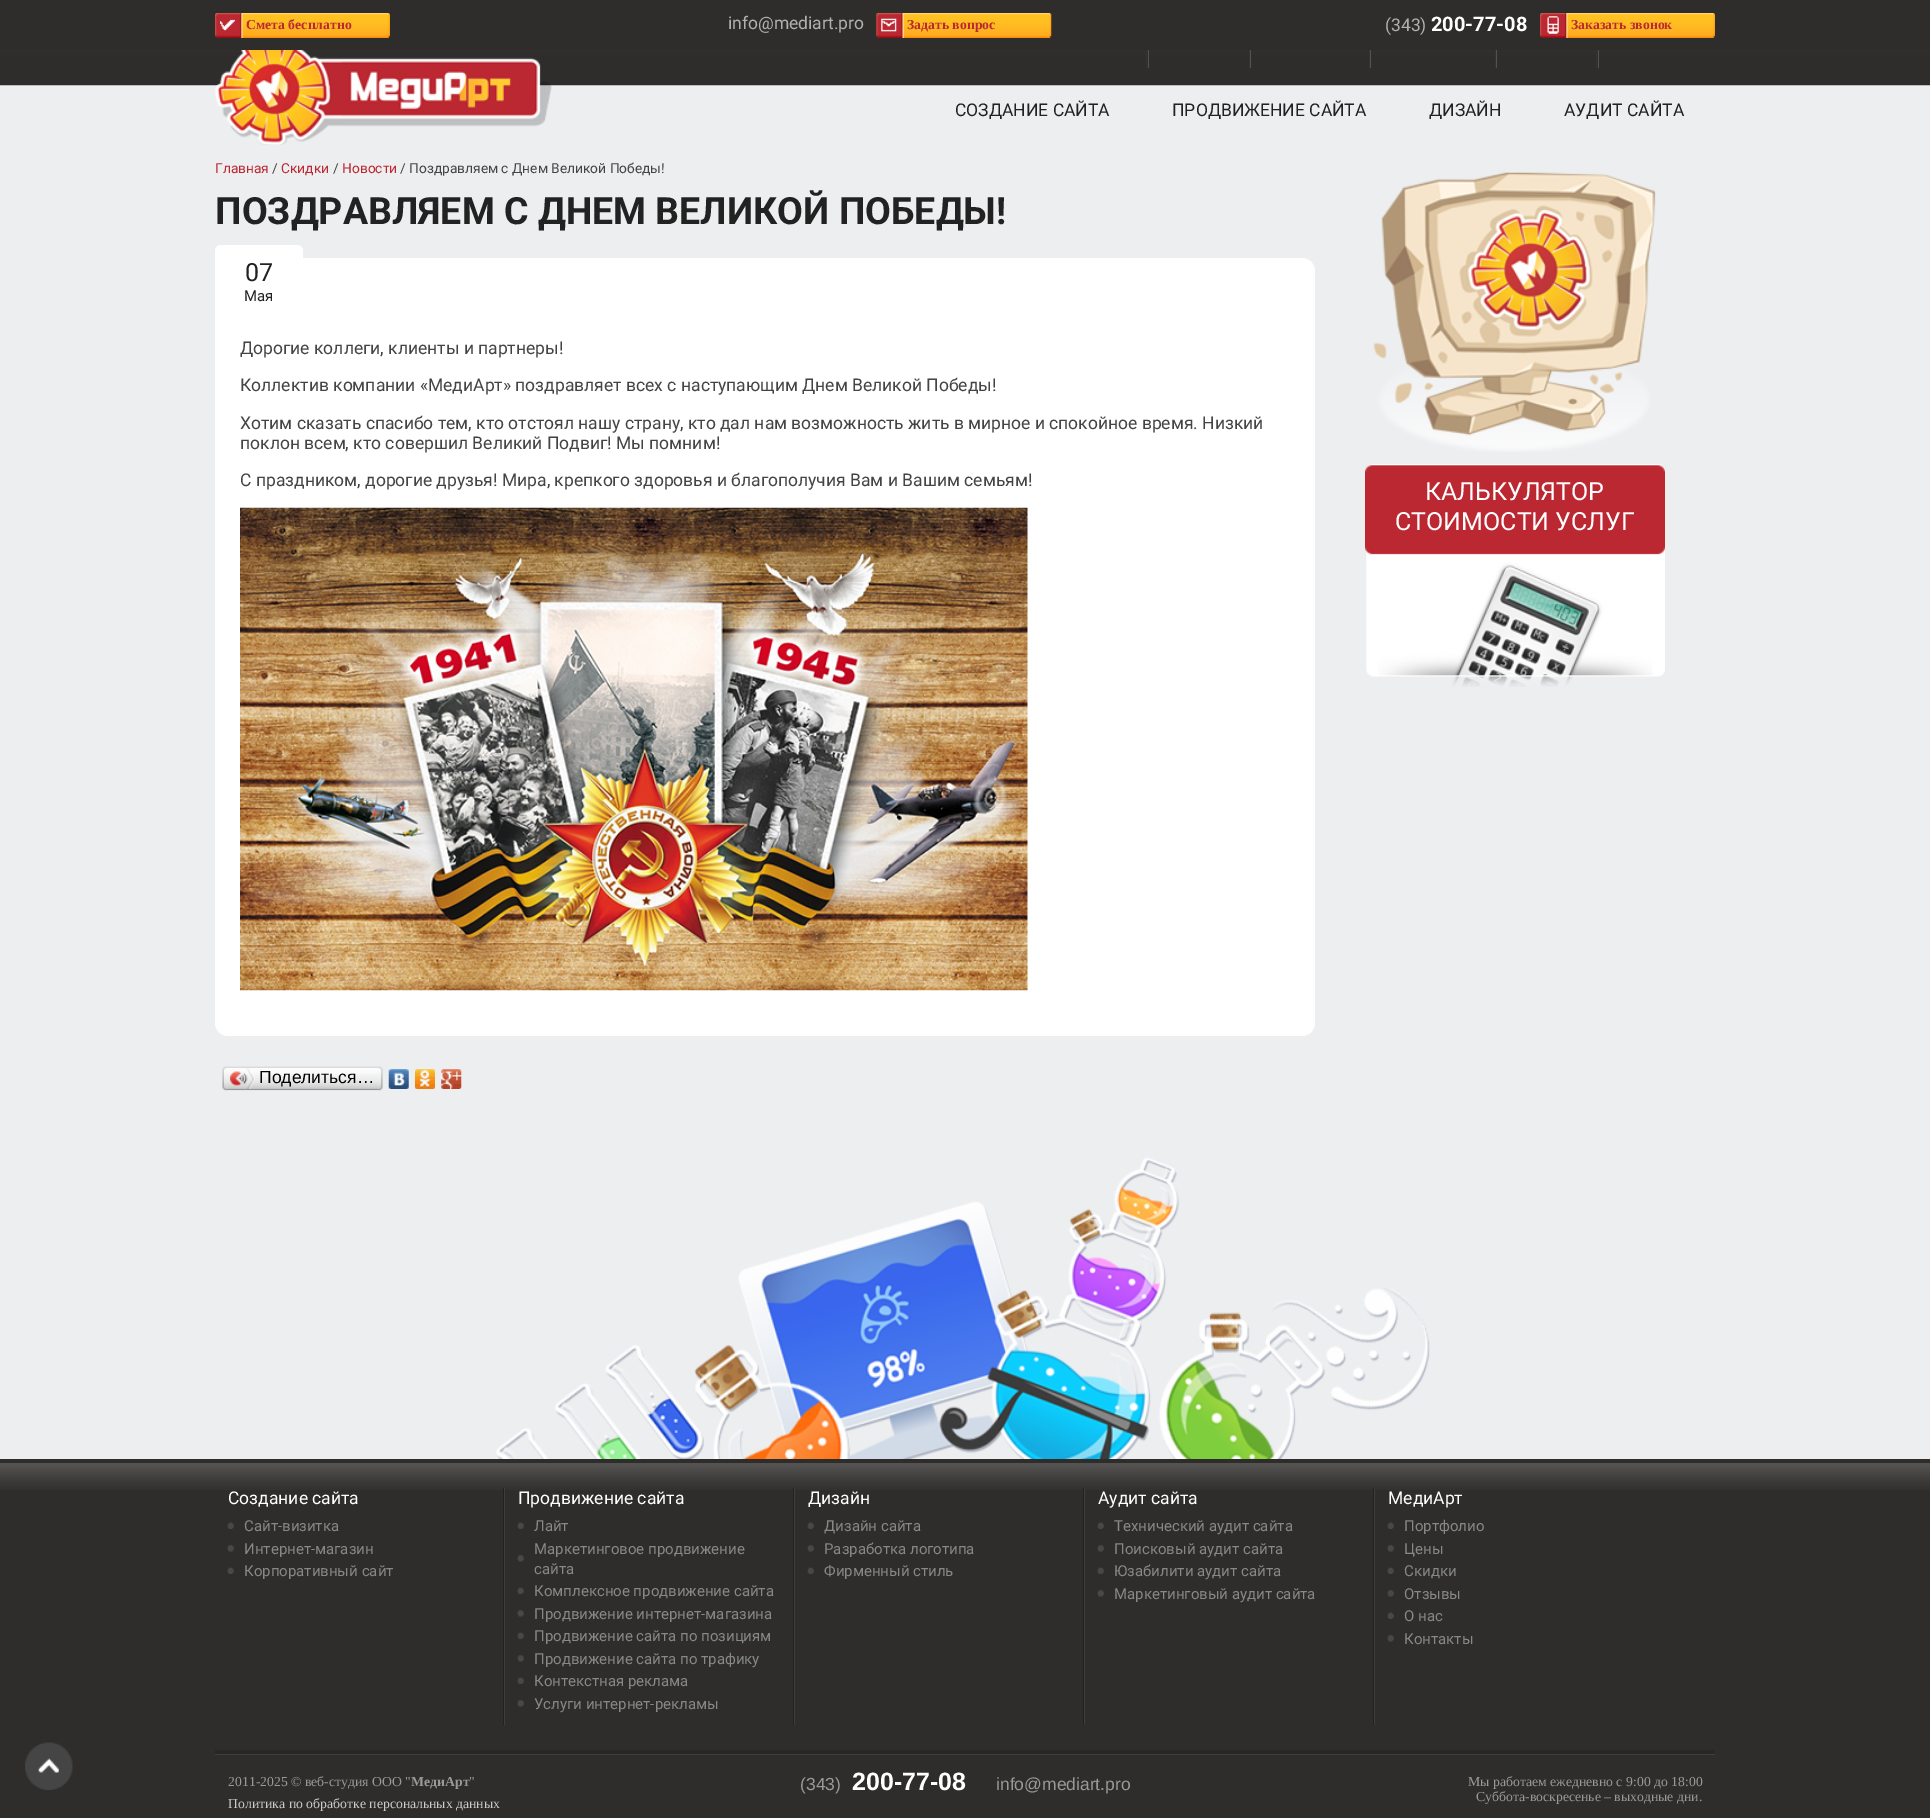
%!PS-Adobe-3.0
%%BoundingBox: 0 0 1930 1818
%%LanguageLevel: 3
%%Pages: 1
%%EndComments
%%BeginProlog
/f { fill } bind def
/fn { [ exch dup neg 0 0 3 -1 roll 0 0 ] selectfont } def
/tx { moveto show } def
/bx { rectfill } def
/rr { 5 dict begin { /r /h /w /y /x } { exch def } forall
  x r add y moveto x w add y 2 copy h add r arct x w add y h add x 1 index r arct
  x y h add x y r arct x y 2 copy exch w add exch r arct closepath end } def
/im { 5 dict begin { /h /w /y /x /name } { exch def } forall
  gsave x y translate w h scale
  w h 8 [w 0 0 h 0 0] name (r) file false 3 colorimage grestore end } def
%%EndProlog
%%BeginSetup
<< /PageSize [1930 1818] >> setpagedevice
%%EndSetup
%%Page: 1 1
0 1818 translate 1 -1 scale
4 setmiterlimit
0.929 0.933 0.941 setrgbcolor
0 0 1930 1818 bx
0.18 0.176 0.173 setrgbcolor
0 0 1930 50 bx
(image0.raw) 215 13 175 25 im
(image1.raw) 220 19 15 12 im
/LiberationSerif-Bold 13.75 fn
0.737 0.157 0.196 setrgbcolor
(Смета бесплатно) 246 29 tx
/Roboto-Regular 17.5 fn
0.69 setgray
(info@mediart.pro) 728 29 tx
(image2.raw) 876 13 176 25 im
(image3.raw) 881 18 16 14 im
/LiberationSerif-Bold 13.75 fn
0.737 0.157 0.196 setrgbcolor
(Задать вопрос) 907 29 tx
/Roboto-Regular 17.5 fn
0.69 setgray
(\(343\)) 1385 31 tx
/Roboto-Bold 20 fn
1 setgray
(200-77-08) 1431 31 tx
(image0.raw) 1540 13 175 25 im
(image4.raw) 1547 16 12 18 im
/LiberationSerif-Bold 13.75 fn
0.737 0.157 0.196 setrgbcolor
(Заказать звонок) 1571 29 tx
(image5.raw) 0 50 1930 36 im
(image6.raw) 215 50 337 95 im
0.204 0.2 0.192 setrgbcolor
1146 50 1 18 bx
1249 50 1 18 bx
0.325 0.322 0.314 setrgbcolor
1148 50 1 18 bx
0.204 0.2 0.192 setrgbcolor
1369 50 1 18 bx
0.325 0.322 0.314 setrgbcolor
1250 50 1 18 bx
0.204 0.2 0.192 setrgbcolor
1495 50 1 18 bx
0.325 0.322 0.314 setrgbcolor
1370 50 1 18 bx
0.204 0.2 0.192 setrgbcolor
1596 50 1 18 bx
0.325 0.322 0.314 setrgbcolor
1496 50 1 18 bx
1598 50 1 18 bx
/Roboto-Regular 17.5 fn
0.133 setgray
(СОЗДАНИЕ САЙТА) 955 116 tx
(ПРОДВИЖЕНИЕ САЙТА) 1172 116 tx
(ДИЗАЙН) 1429 116 tx
(АУДИТ САЙТА) 1564 116 tx
/Roboto-Regular 13.75 fn
0.737 0.157 0.196 setrgbcolor
(Главная) 215 173 tx
0.267 setgray
(/) 272 173 tx
0.737 0.157 0.196 setrgbcolor
(Скидки) 281 173 tx
0.267 setgray
(/) 333 173 tx
0.737 0.157 0.196 setrgbcolor
(Новости) 342 173 tx
0.267 setgray
(/ Поздравляем с Днем Великой Победы!) 400 173 tx
/Roboto-Bold 37.5 fn
0.133 setgray
(ПОЗДРАВЛЯЕМ С ДНЕМ ВЕЛИКОЙ ПОБЕДЫ!) 215 224 tx
1 setgray
215 258 1100 778 13 rr f
215 245 88 73 6 rr f
/Roboto-Regular 25 fn
0.133 setgray
(07) 245 281 tx
/Roboto-Regular 15 fn
(Мая) 244 301 tx
/Roboto-Regular 17.5 fn
0.267 setgray
(Дорогие коллеги, клиенты и партнеры!) 240 354 tx
(Коллектив компании «МедиАрт» поздравляет всех с наступающим Днем Великой Победы!) 240 391 tx
(Хотим сказать спасибо тем, кто отстоял нашу страну, кто дал нам возможность жить в мирное и спокойное время. Низкий) 240 429 tx
(поклон всем, кто совершил Великий Подвиг! Мы помним!) 240 449 tx
(С праздником, дорогие друзья! Мира, крепкого здоровья и благополучия Вам и Вашим семьям!) 240 486 tx
(image7.raw) 240 507 788 484 im
(image8.raw) 226 1066 153 25 im
(image9.raw) 222 1066 5 25 im
(image10.raw) 230 1068 25 21 im
/LiberationSans-Regular 17.5 fn
0 setgray
(Поделиться…) 259 1083 tx
(image11.raw) 378 1066 5 25 im
(image12.raw) 388 1069 21 20 im
(image13.raw) 415 1069 20 20 im
(image14.raw) 441 1069 21 20 im
(image15.raw) 1373 172 283 280 im
(image16.raw) 1365 464 300 223 im
/Roboto-Regular 25 fn
1 setgray
(КАЛЬКУЛЯТОР) 1425 500 tx
(СТОИМОСТИ УСЛУГ) 1395 530 tx
0.18 0.176 0.173 setrgbcolor
0 1490 1930 328 bx
(image17.raw) 25 1742 48 48 im
(image18.raw) 496 1157 934 302 im
(image19.raw) 0 1463 1930 27 im
0 1459 1930 4 bx
0.133 0.129 0.125 setrgbcolor
503 1488 1 237 bx
/Roboto-Regular 17.5 fn
1 setgray
(Создание сайта) 228 1504 tx
(image20.raw) 227 1522 7 7 im
/Roboto-Regular 15 fn
0.533 setgray
(Сайт-визитка) 244 1531 tx
(image21.raw) 227 1545 7 7 im
(Интернет-магазин) 244 1554 tx
(image20.raw) 227 1567 7 7 im
(Корпоративный сайт) 244 1576 tx
0.133 0.129 0.125 setrgbcolor
793 1488 1 237 bx
0.247 0.243 0.239 setrgbcolor
504 1488 1 237 bx
/Roboto-Regular 17.5 fn
1 setgray
(Продвижение сайта) 518 1504 tx
(image20.raw) 517 1522 7 7 im
/Roboto-Regular 15 fn
0.533 setgray
(Лайт) 534 1531 tx
(image21.raw) 517 1555 7 7 im
(Маркетинговое продвижение) 534 1554 tx
(сайта) 534 1574 tx
(image20.raw) 517 1587 7 7 im
(Комплексное продвижение сайта) 534 1596 tx
(image21.raw) 517 1610 7 7 im
(Продвижение интернет-магазина) 534 1619 tx
(image20.raw) 517 1632 7 7 im
(Продвижение сайта по позициям) 534 1641 tx
(image21.raw) 517 1655 7 7 im
(Продвижение сайта по трафику) 534 1664 tx
(image20.raw) 517 1677 7 7 im
(Контекстная реклама) 534 1686 tx
(image21.raw) 517 1700 7 7 im
(Услуги интернет-рекламы) 534 1709 tx
0.133 0.129 0.125 setrgbcolor
1083 1488 1 237 bx
0.247 0.243 0.239 setrgbcolor
794 1488 1 237 bx
/Roboto-Regular 17.5 fn
1 setgray
(Дизайн) 808 1504 tx
(image22.raw) 807 1522 7 7 im
/Roboto-Regular 15 fn
0.533 setgray
(Дизайн сайта) 824 1531 tx
(image23.raw) 807 1545 7 7 im
(Разработка логотипа) 824 1554 tx
(image22.raw) 807 1567 7 7 im
(Фирменный стиль) 824 1576 tx
0.133 0.129 0.125 setrgbcolor
1373 1488 1 237 bx
0.247 0.243 0.239 setrgbcolor
1084 1488 1 237 bx
/Roboto-Regular 17.5 fn
1 setgray
(Аудит сайта) 1098 1504 tx
(image22.raw) 1097 1522 7 7 im
/Roboto-Regular 15 fn
0.533 setgray
(Технический аудит сайта) 1114 1531 tx
(image23.raw) 1097 1545 7 7 im
(Поисковый аудит сайта) 1114 1554 tx
(image22.raw) 1097 1567 7 7 im
(Юзабилити аудит сайта) 1114 1576 tx
(image23.raw) 1097 1590 7 7 im
(Маркетинговый аудит сайта) 1114 1599 tx
0.247 0.243 0.239 setrgbcolor
1374 1488 1 237 bx
/Roboto-Regular 17.5 fn
1 setgray
(МедиАрт) 1388 1504 tx
(image20.raw) 1387 1522 7 7 im
/Roboto-Regular 15 fn
0.533 setgray
(Портфолио) 1404 1531 tx
(image21.raw) 1387 1545 7 7 im
(Цены) 1404 1554 tx
(image20.raw) 1387 1567 7 7 im
(Скидки) 1404 1576 tx
(image21.raw) 1387 1590 7 7 im
(Отзывы) 1404 1599 tx
(image20.raw) 1387 1612 7 7 im
(О нас) 1404 1621 tx
(image21.raw) 1387 1635 7 7 im
(Контакты) 1404 1644 tx
0.157 0.153 0.149 setrgbcolor
215 1750 1500 4 bx
0.247 0.243 0.239 setrgbcolor
215 1754 1500 1 bx
/LiberationSerif-Regular 13.75 fn
0.6 setgray
(2011-2025 © веб-студия ООО ") 228 1786 tx
/LiberationSerif-Bold 13.75 fn
(МедиАрт) 411 1786 tx
/LiberationSerif-Regular 13.75 fn
(") 469 1786 tx
0.8 setgray
(Политика по обработке персональных данных) 228 1808 tx
/LiberationSans-Regular 17.5 fn
0.6 setgray
(\(343\)) 800 1790 tx
/LiberationSans-Bold 25 fn
1 setgray
(200-77-08) 852 1790 tx
/LiberationSans-Regular 17.5 fn
0.6 setgray
(info@mediart.pro) 996 1790 tx
/LiberationSerif-Regular 13.75 fn
(Мы работаем ежедневно с 9:00 до 18:00) 1468 1786 tx
(Суббота-воскресенье – выходные дни.) 1476 1801 tx
showpage
%%EOF
